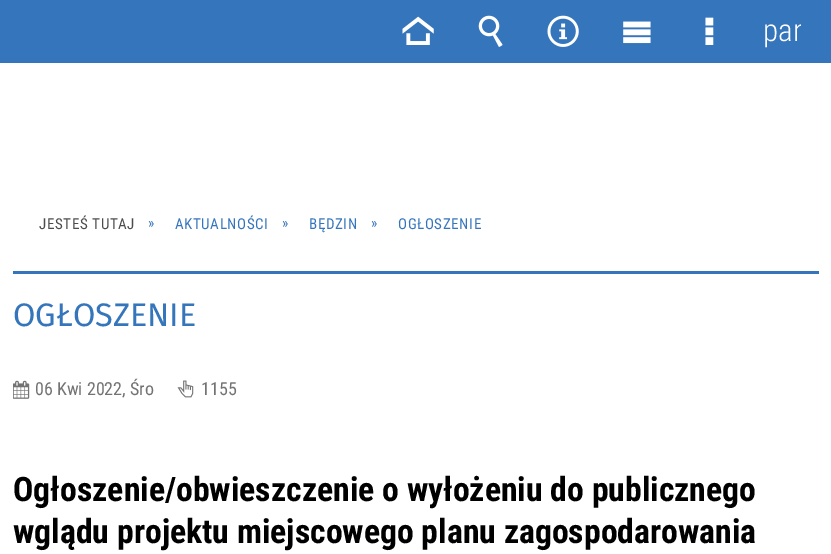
%!PS-Adobe-3.0
%%BoundingBox: 0 0 831 554
%%LanguageLevel: 3
%%Pages: 1
%%EndComments
%%BeginProlog
/m { moveto } bind def
/q { gsave } bind def
/Q { grestore } bind def
/fn { [ exch dup neg 0 0 3 -1 roll 0 0 ] selectfont } def
/tx { moveto show } def
/bx { rectfill } def
/im { 5 dict begin { /h /w /y /x /name } { exch def } forall
  gsave x y translate w h scale
  w h 8 [w 0 0 h 0 0] name (r) file false 3 colorimage grestore end } def
%%EndProlog
%%BeginSetup
<< /PageSize [831 554] >> setpagedevice
%%EndSetup
%%Page: 1 1
0 554 translate 1 -1 scale
4 setmiterlimit
1 setgray
0 0 831 554 bx
0.208 0.459 0.737 setrgbcolor
0 0 831 63 bx
(image0.raw) 402 16 32 29 im
(image1.raw) 478 15 25 32 im
(image2.raw) 547 15 32 32 im
(image3.raw) 623 21 28 23 im
(image4.raw) 705 17 9 28 im
q
764 13 37 37 rectclip
/RobotoCondensed-Light 31 fn
1 setgray
(pan) 763 41 tx
Q
/RobotoCondensed-Regular 15 fn
0.298 setgray
39 229 m 0.6 0 (JESTEŚ TUTAJ) ashow
0.208 0.459 0.737 setrgbcolor
148 228 m 0.6 0 (») ashow
175 229 m 0.6 0 (AKTUALNOŚCI) ashow
282 228 m 0.6 0 (») ashow
309 229 m 0.6 0 (BĘDZIN) ashow
371 228 m 0.6 0 (») ashow
398 229 m 0.6 0 (OGŁOSZENIE) ashow
13 271 806 3 bx
/FiraSans-Regular 32.5 fn
(OGŁOSZENIE) 13 326 tx
(image5.raw) 13 380 17 19 im
/RobotoCondensed-Regular 18 fn
0.451 setgray
(06 Kwi 2022, Śro) 35 395 tx
(image6.raw) 177 380 17 18 im
(1155) 201 395 tx
/RobotoCondensed-Bold 33.75 fn
0 setgray
(Ogłoszenie/obwieszczenie o wyłożeniu do publicznego) 13 501 tx
(wglądu projektu miejscowego planu zagospodarowania) 13 543 tx
showpage
%%EOF
